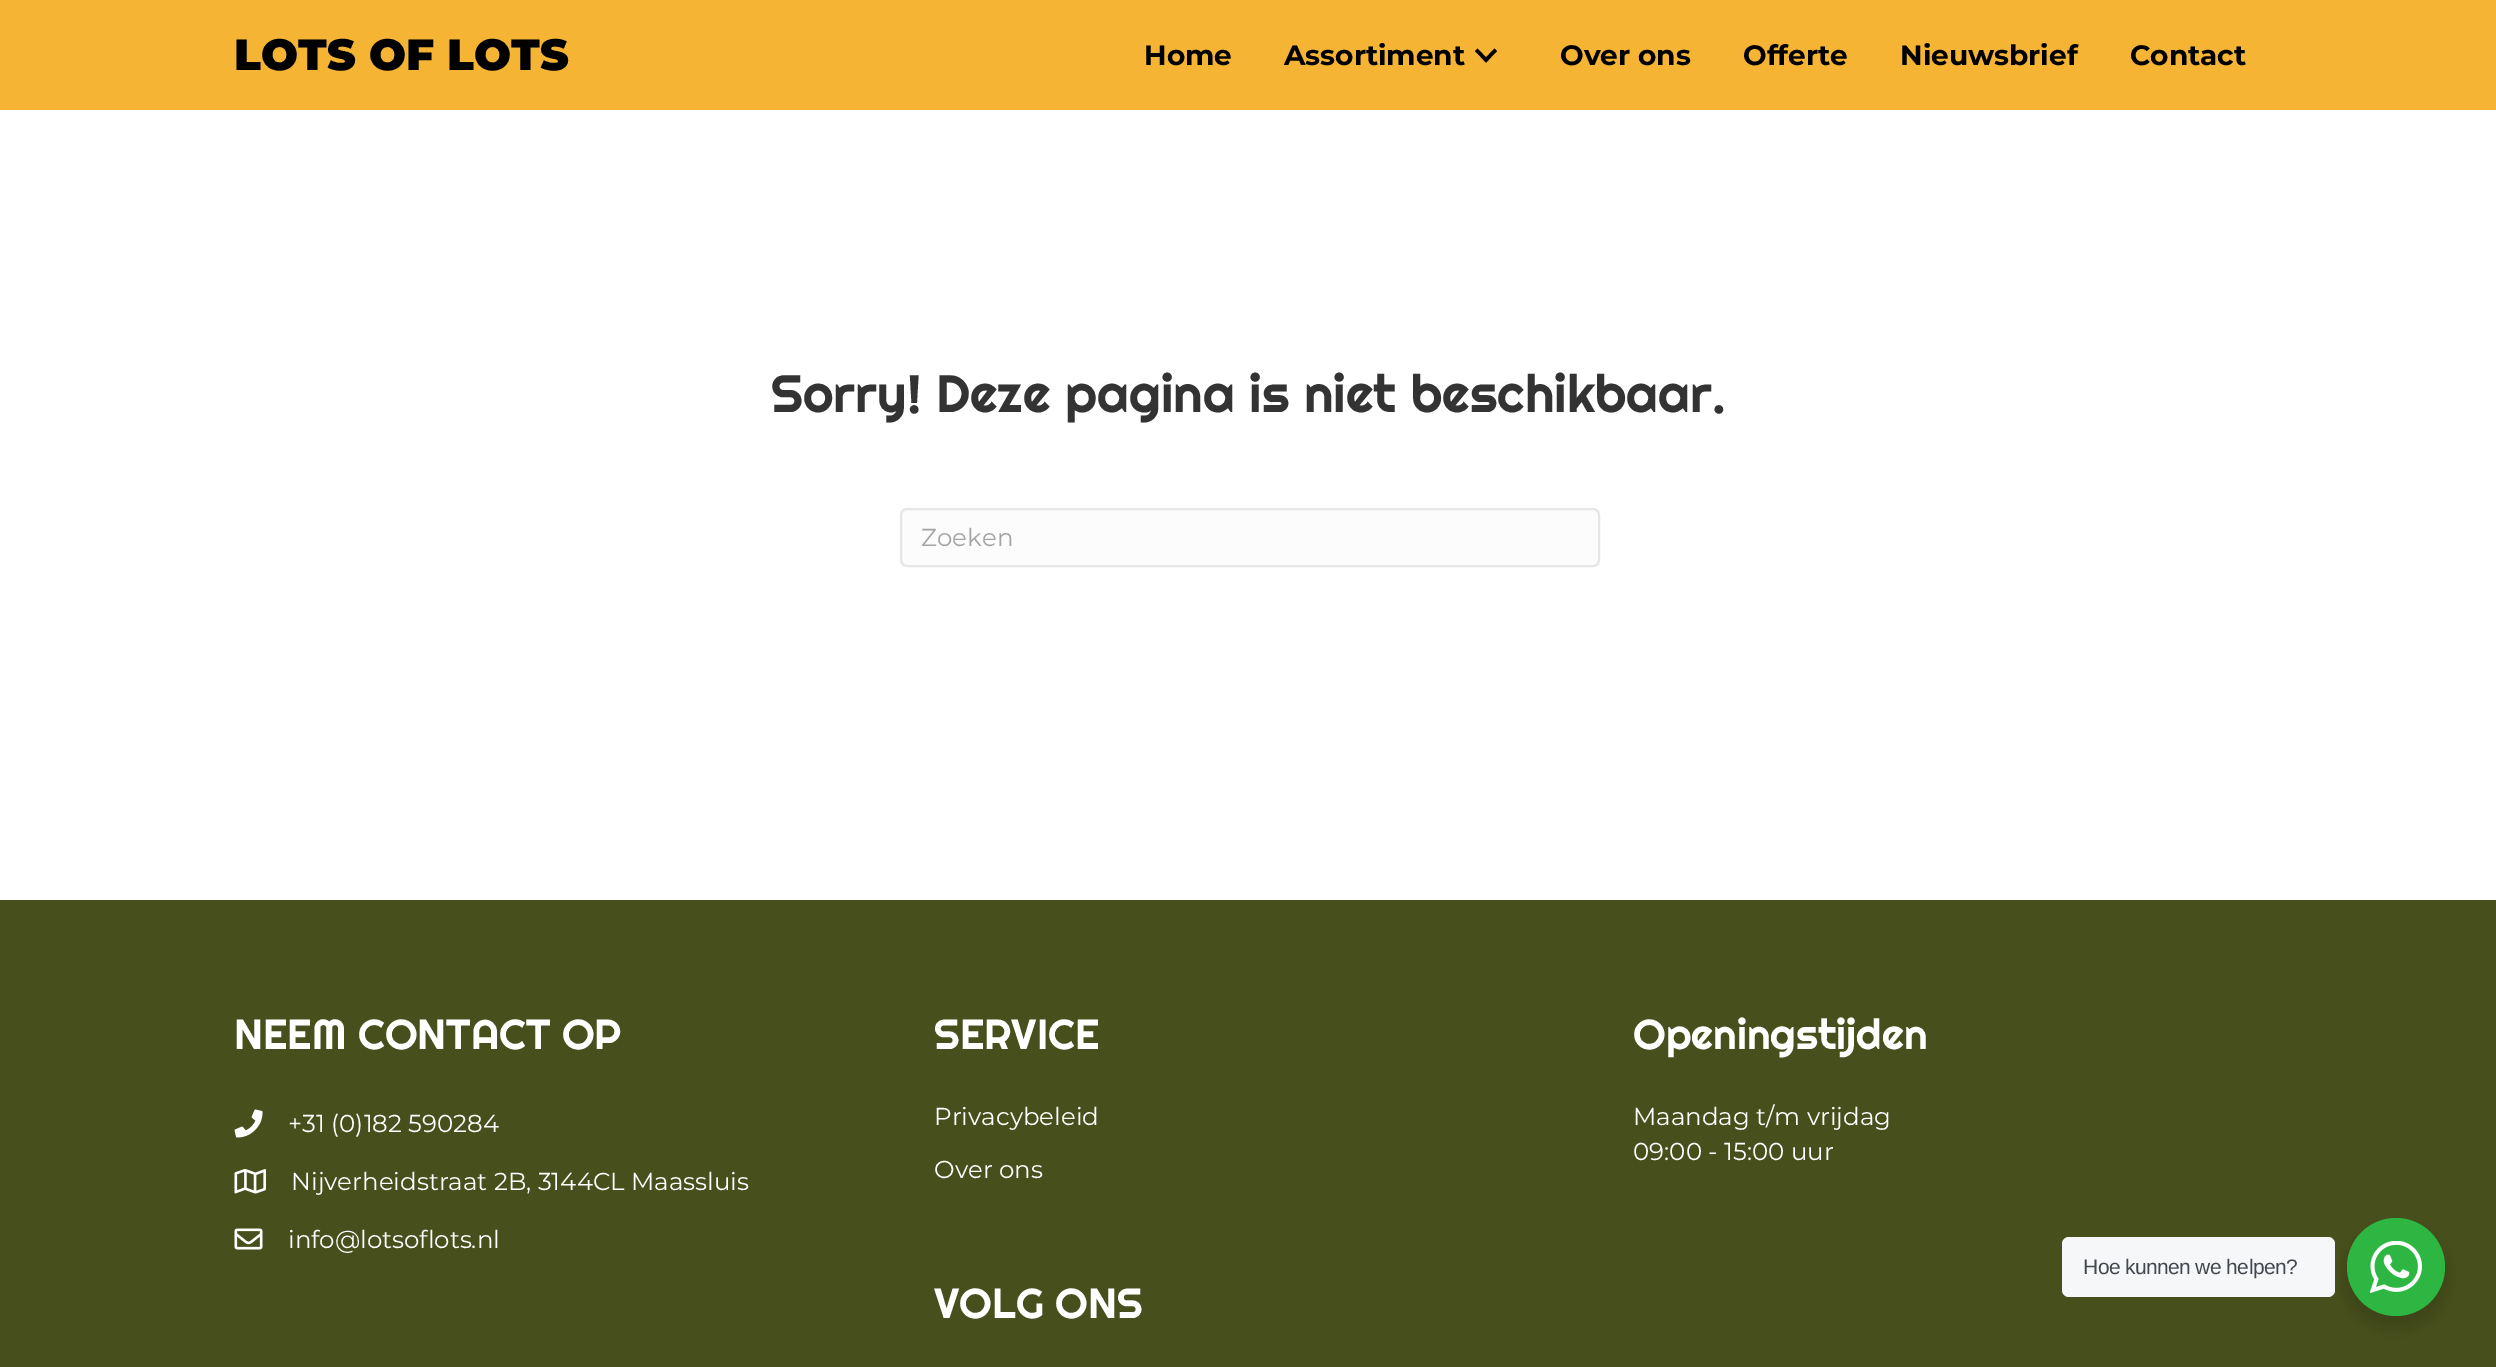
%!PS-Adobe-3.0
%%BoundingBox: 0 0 2496 1367
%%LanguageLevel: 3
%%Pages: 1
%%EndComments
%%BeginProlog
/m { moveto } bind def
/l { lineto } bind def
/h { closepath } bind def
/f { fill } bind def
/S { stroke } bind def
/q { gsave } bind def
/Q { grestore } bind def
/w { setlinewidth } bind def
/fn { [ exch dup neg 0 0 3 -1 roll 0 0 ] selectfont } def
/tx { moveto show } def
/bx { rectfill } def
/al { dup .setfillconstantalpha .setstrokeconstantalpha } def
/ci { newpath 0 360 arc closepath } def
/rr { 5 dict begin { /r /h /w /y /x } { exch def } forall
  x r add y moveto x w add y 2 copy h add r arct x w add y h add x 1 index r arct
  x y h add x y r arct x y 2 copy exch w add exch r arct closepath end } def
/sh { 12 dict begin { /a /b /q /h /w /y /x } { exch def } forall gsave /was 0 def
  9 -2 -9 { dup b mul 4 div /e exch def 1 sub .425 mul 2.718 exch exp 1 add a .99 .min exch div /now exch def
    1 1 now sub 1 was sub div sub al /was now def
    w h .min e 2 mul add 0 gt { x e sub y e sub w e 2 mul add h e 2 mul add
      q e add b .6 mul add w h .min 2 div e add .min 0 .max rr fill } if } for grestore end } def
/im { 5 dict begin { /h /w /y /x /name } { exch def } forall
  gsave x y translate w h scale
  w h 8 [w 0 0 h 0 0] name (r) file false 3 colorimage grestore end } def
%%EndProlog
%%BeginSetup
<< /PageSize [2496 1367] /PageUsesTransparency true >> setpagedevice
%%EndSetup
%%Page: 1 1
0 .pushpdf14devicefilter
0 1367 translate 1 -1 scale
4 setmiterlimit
1 setgray
0 0 2496 1367 bx
0.961 0.706 0.204 setrgbcolor
0 0 2496 110 bx
/Montserrat-Black 43.75 fn
0 setgray
(LOTS OF LOTS) 234 70 tx
/Montserrat-Bold 28 fn
(Home) 1144 65 tx
(Assortiment) 1284 65 tx
1494.5 48.5 m 1497 51 l 1486 62.5 l 1483.5 60 l h f
1477.5 48.5 m 1488.5 60 l 1486 62.5 l 1475 51 l h f
(Over ons) 1560 65 tx
(Offerte) 1743 65 tx
(Nieuwsbrief) 1900 65 tx
(Contact) 2130 65 tx
/Righteous-Regular 52.5 fn
0.2 setgray
(Sorry! Deze pagina is niet beschikbaar.) 771 412 tx
0.988 setgray
901 509 698 57 6 rr q f Q
0.902 setgray
2 w
S
/Montserrat-Regular 24.5 fn
0.639 setgray
(Zoeken) 921 546 tx
0.278 0.31 0.11 setrgbcolor
0 900 2496 467 bx
/Righteous-Regular 42 fn
1 setgray
(NEEM CONTACT OP) 234 1049 tx
(image0.raw) 234 1109 29 29 im
/Montserrat-Regular 24.5 fn
(+31 \(0\)182 590284) 288 1132 tx
(image1.raw) 234 1169 32 25 im
(Nijverheidstraat 2B, 3144CL Maassluis) 291 1190 tx
(image2.raw) 234 1228 29 22 im
(info@lotsoflots.nl) 288 1248 tx
/Righteous-Regular 42 fn
(SERVICE) 934 1049 tx
/Montserrat-Regular 24.5 fn
(Privacybeleid) 934 1125 tx
(Over ons) 934 1178 tx
/Righteous-Regular 42 fn
(VOLG ONS) 934 1318 tx
(Openingstijden) 1633 1049 tx
/Montserrat-Regular 24.5 fn
(Maandag t/m vrijdag) 1633 1125 tx
(09:00 - 15:00 uur) 1633 1160 tx
0 setgray
2343 1225 105 105 52.5 7 0.14 sh
0.961 0.969 0.976 setrgbcolor
2062 1237 273 60 7 rr f
/LiberationSans-Regular 21 fn
0.263 0.278 0.306 setrgbcolor
2083 1274 m -0.6 0 (Hoe kunnen we helpen?) ashow
0.176 0.718 0.259 setrgbcolor
2396 1267 49 ci f
(image3.raw) 2370 1241 52 52 im
.poppdf14devicefilter showpage
%%EOF
